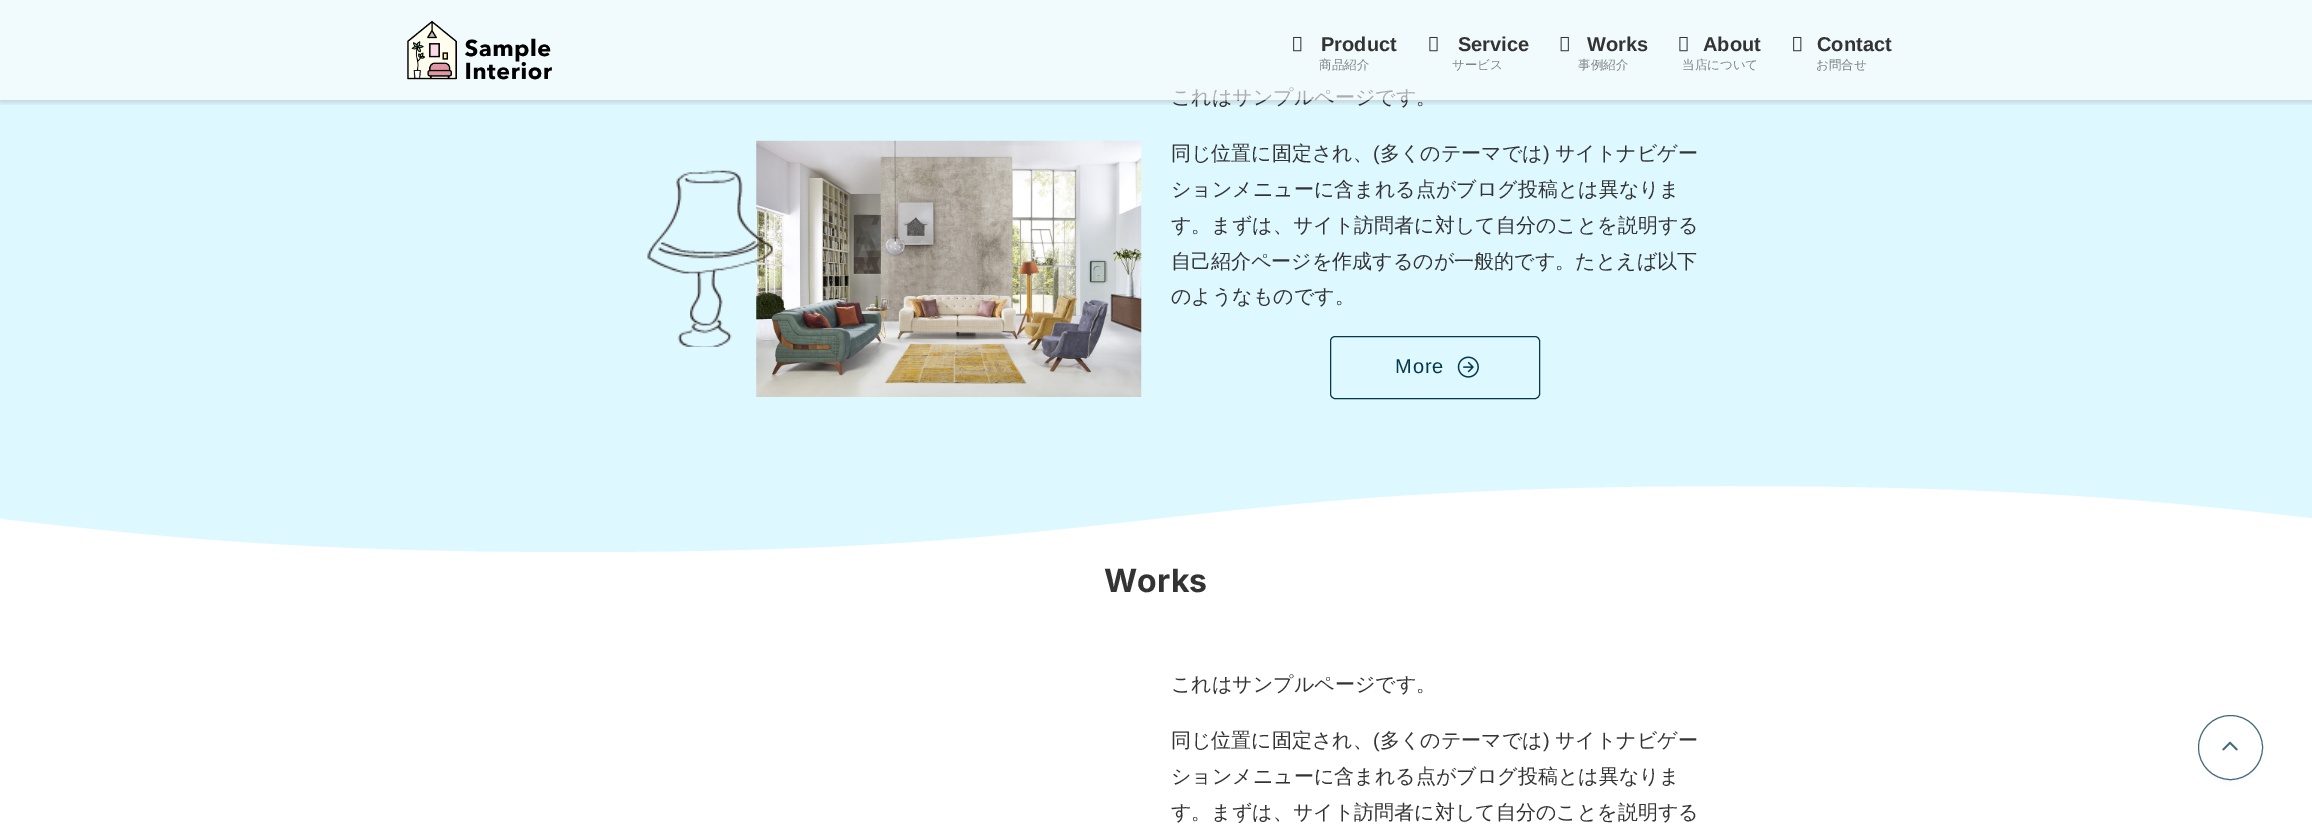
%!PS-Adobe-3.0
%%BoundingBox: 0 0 2312 830
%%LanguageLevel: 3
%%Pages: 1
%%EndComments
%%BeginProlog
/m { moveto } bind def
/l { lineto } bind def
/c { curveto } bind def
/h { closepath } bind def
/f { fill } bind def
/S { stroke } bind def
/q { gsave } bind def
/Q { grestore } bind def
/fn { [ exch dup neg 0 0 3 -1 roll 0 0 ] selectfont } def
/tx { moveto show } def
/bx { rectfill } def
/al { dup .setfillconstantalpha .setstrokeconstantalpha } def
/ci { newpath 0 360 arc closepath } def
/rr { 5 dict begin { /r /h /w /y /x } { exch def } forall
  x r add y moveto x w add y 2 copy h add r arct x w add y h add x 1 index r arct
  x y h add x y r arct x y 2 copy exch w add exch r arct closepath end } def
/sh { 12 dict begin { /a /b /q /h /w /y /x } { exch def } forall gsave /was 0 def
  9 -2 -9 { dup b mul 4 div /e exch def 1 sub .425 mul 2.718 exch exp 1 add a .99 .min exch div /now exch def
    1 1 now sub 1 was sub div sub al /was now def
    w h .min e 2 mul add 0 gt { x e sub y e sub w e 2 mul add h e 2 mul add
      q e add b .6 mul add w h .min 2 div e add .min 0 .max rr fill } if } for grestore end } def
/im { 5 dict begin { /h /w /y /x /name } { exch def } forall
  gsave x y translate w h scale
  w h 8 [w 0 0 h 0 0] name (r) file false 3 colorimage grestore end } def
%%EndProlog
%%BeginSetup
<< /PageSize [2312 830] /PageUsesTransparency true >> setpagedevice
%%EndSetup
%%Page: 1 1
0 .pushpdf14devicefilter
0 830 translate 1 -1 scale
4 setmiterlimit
0.871 0.973 1 setrgbcolor
0 0 2312 830 bx
q
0 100 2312 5 rectclip
0 setgray
0 3 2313 100 0 2.5 0.12 sh
Q
/WenQuanYiZenHei-Medium 20 fn
0.2 setgray
(これはサンプルページです。) 1171 104 tx
0.6 al
0.992 setgray
0 0 2312 100 bx
1 al
(image0.raw) 407 20 145 60 im
(image1.raw) 1293 36 9 16 im
/LiberationSans-Bold 20 fn
0.2 setgray
(Product) 1321 51 tx
/WenQuanYiZenHei-Medium 12.5 fn
0.498 0.514 0.518 setrgbcolor
(商品紹介) 1319 69 tx
(image2.raw) 1429 36 9 16 im
/LiberationSans-Bold 20 fn
0.2 setgray
(Service) 1458 51 tx
/WenQuanYiZenHei-Medium 12.5 fn
0.498 0.514 0.518 setrgbcolor
(サービス) 1452 69 tx
(image3.raw) 1560 36 9 16 im
/LiberationSans-Bold 20 fn
0.2 setgray
(Works) 1587 51 tx
/WenQuanYiZenHei-Medium 12.5 fn
0.498 0.514 0.518 setrgbcolor
(事例紹介) 1578 69 tx
(image2.raw) 1679 36 9 16 im
/LiberationSans-Bold 20 fn
0.2 setgray
(About) 1703 51 tx
/WenQuanYiZenHei-Medium 12.5 fn
0.498 0.514 0.518 setrgbcolor
(当店について) 1682 69 tx
(image1.raw) 1793 36 9 16 im
/LiberationSans-Bold 20 fn
0.2 setgray
(Contact) 1817 51 tx
/WenQuanYiZenHei-Medium 12.5 fn
0.498 0.514 0.518 setrgbcolor
(お問合せ) 1816 69 tx
(image5.raw) 756 140 386 257 im
(image4.raw) 647 170 126 177 im
/WenQuanYiZenHei-Medium 20 fn
0.2 setgray
(同じ位置に固定され、) 1171 160 tx
/LiberationSans-Regular 20 fn
(\() 1373 160 tx
/WenQuanYiZenHei-Medium 20 fn
(多くのテーマでは) 1380 160 tx
/LiberationSans-Regular 20 fn
(\)) 1543 160 tx
/WenQuanYiZenHei-Medium 20 fn
(サイトナビゲー) 1555 160 tx
(ションメニューに含まれる点がブログ投稿とは異なりま) 1171 196 tx
(す。まずは、サイト訪問者に対して自分のことを説明する) 1171 232 tx
(自己紹介ページを作成するのが一般的です。たとえば以下) 1171 268 tx
(のようなものです。) 1171 303 tx
0.016 0.22 0.298 setrgbcolor
1330.5 336.5 209 62 4.5 rr S
/LiberationSans-Regular 20 fn
1395 373 m 1 0 (More) ashow
(image6.raw) 1457 356 22 22 im
1 setgray
0 486 2312 344 bx
0.871 0.973 1 setrgbcolor
0 518 m 3 519 l 145 535 291 552 578 552 c 865 552 1011 535 1153 519 c 1296 503 1443 486 1734 486 c 2023 486 2171 502 2312 518 c 2312 478 l 0 478 l h f
/Inter-Bold 32 fn
0.2 setgray
1104 592 m 0.25 0 (Works) ashow
/WenQuanYiZenHei-Medium 20 fn
(これはサンプルページです。) 1171 691 tx
(同じ位置に固定され、) 1171 747 tx
/LiberationSans-Regular 20 fn
(\() 1373 747 tx
/WenQuanYiZenHei-Medium 20 fn
(多くのテーマでは) 1380 747 tx
/LiberationSans-Regular 20 fn
(\)) 1543 747 tx
/WenQuanYiZenHei-Medium 20 fn
(サイトナビゲー) 1555 747 tx
(ションメニューに含まれる点がブログ投稿とは異なりま) 1171 783 tx
(す。まずは、サイト訪問者に対して自分のことを説明する) 1171 819 tx
0.251 setgray
2203 725 55 55 27.5 2.5 0.1 sh
1 setgray
2230.5 747.5 32 ci q f Q
0.263 0.416 0.475 setrgbcolor
S
(image7.raw) 2222 741 16 10 im
.poppdf14devicefilter showpage
%%EOF
